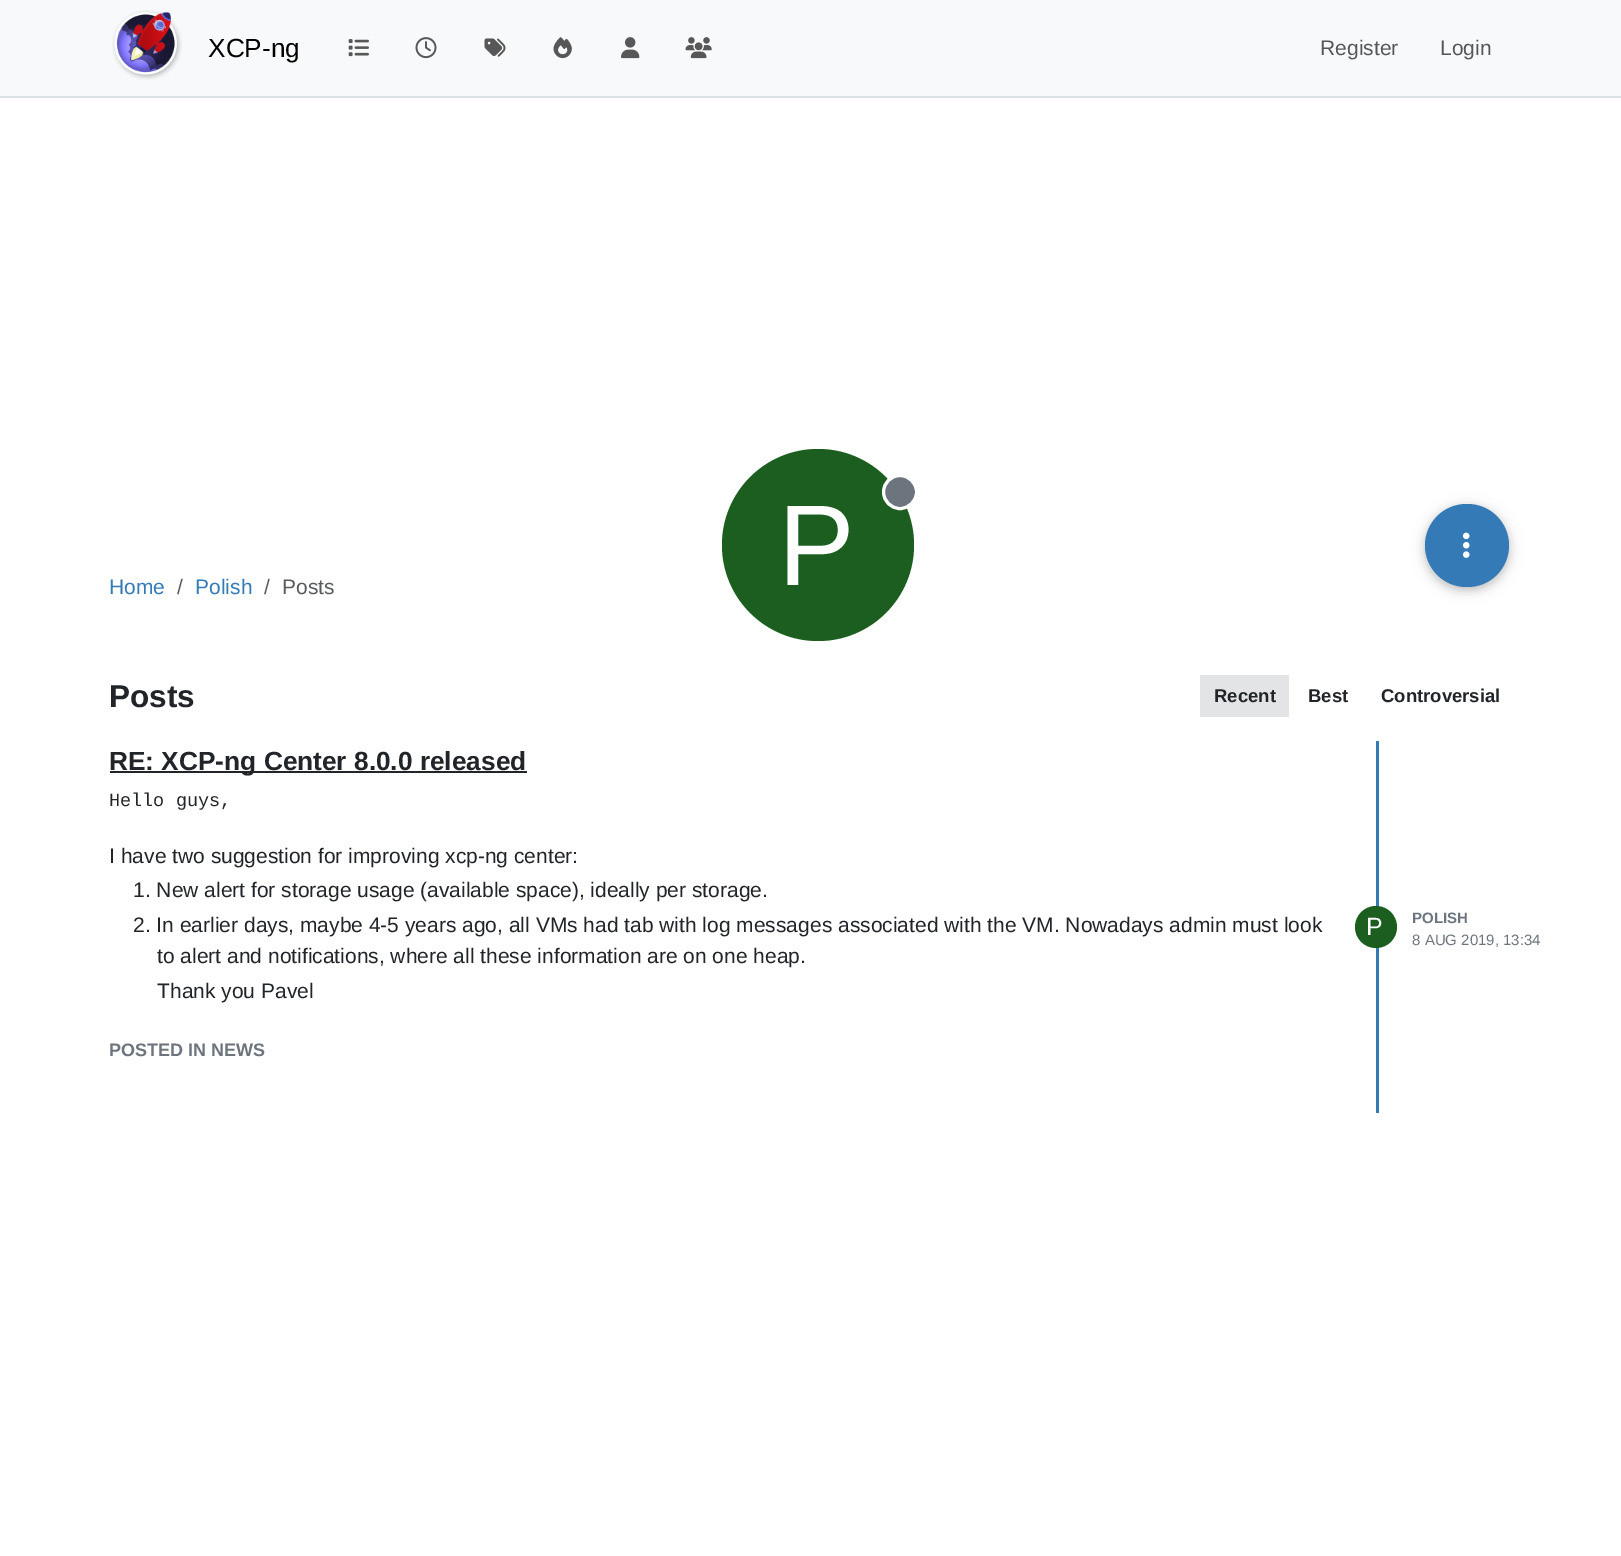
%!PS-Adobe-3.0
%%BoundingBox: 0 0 1621 1556
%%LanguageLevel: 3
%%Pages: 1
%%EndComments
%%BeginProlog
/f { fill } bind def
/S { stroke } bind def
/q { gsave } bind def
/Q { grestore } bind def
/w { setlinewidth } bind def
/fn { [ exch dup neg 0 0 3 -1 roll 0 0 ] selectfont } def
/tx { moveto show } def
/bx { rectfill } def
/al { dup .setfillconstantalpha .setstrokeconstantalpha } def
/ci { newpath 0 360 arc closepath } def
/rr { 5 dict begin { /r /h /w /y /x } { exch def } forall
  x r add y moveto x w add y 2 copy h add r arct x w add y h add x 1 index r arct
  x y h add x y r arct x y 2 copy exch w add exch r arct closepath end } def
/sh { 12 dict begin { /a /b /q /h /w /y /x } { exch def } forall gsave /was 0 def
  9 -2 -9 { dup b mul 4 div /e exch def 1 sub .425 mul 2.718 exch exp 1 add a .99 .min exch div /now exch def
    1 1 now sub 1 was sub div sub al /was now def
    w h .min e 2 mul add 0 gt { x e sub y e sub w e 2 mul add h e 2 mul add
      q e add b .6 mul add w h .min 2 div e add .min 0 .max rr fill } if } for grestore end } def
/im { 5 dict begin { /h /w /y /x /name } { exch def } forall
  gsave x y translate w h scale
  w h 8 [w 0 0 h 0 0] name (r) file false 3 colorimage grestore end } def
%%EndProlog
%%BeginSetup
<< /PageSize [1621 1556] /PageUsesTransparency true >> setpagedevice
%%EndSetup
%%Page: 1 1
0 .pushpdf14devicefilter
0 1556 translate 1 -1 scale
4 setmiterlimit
1 setgray
0 0 1621 1556 bx
0.973 0.976 0.98 setrgbcolor
0 0 1621 96 bx
0.871 0.886 0.902 setrgbcolor
0 96 1621 2 bx
(image0.raw) 112 10 70 70 im
/LiberationSans-Regular 26.25 fn
0 setgray
(XCP-ng) 208 57 tx
(image1.raw) 348 39 21 18 im
(image2.raw) 415 37 22 22 im
(image3.raw) 484 38 22 19 im
(image4.raw) 553 37 19 22 im
(image5.raw) 621 37 19 22 im
(image6.raw) 685 37 27 22 im
/LiberationSans-Regular 21 fn
0.341 0.341 0.345 setrgbcolor
(Register) 1320 55 tx
(Login) 1440 55 tx
0.2 0.478 0.718 setrgbcolor
(Home) 109 594 tx
0.349 0.361 0.373 setrgbcolor
(/) 177 594 tx
0.2 0.478 0.718 setrgbcolor
(Polish) 195 594 tx
0.349 0.361 0.373 setrgbcolor
(/) 264 594 tx
(Posts) 282 594 tx
0.106 0.369 0.125 setrgbcolor
818 545 96 ci f
0.424 0.459 0.49 setrgbcolor
900 492 16.5 ci q f Q
1 setgray
3 w
S
/LiberationSans-Regular 115 fn
(P) 778 585 tx
0 setgray
1425 507 84 83 41.5 7.5 0.12 sh
1425 507 84 83 41.5 4 0.16 sh
0.2 0.478 0.718 setrgbcolor
1425 504 84 83 41.5 rr f
(image7.raw) 1463 532 7 26 im
/LiberationSans-Bold 31.5 fn
0.129 0.145 0.161 setrgbcolor
(Posts) 109 707 tx
0.89 0.894 0.898 setrgbcolor
1200 675 89 42 bx
/LiberationSans-Bold 18.5 fn
0.129 0.145 0.161 setrgbcolor
(Recent) 1214 702 tx
(Best) 1308 702 tx
(Controversial) 1381 702 tx
0.2 0.478 0.718 setrgbcolor
1376 741 3 372 bx
0.129 0.145 0.161 setrgbcolor
110 771 417 2 bx
/LiberationSans-Bold 26.25 fn
(RE: XCP-ng Center 8.0.0 released) 109 770 tx
/LiberationMono-Regular 18.5 fn
(Hello guys,) 109 806 tx
/LiberationSans-Regular 21 fn
(I have two suggestion for improving xcp-ng center:) 109 863 tx
(1. New alert for storage usage \(available space\), ideally per storage.) 133 897 tx
(2. In earlier days, maybe 4-5 years ago, all VMs had tab with log messages associated with the VM. Nowadays admin must look) 133 932 tx
(to alert and notifications, where all these information are on one heap.) 157 963 tx
(Thank you Pavel) 157 998 tx
0.106 0.369 0.125 setrgbcolor
1376 927 21 ci f
/LiberationSans-Regular 25 fn
1 setgray
(P) 1366 935 tx
/LiberationSans-Bold 15 fn
0.424 0.459 0.49 setrgbcolor
(POLISH) 1412 923 tx
/LiberationSans-Regular 15 fn
(8 AUG 2019, 13:34) 1412 945 tx
/LiberationSans-Bold 18 fn
(POSTED IN NEWS) 109 1056 tx
.poppdf14devicefilter showpage
%%EOF
